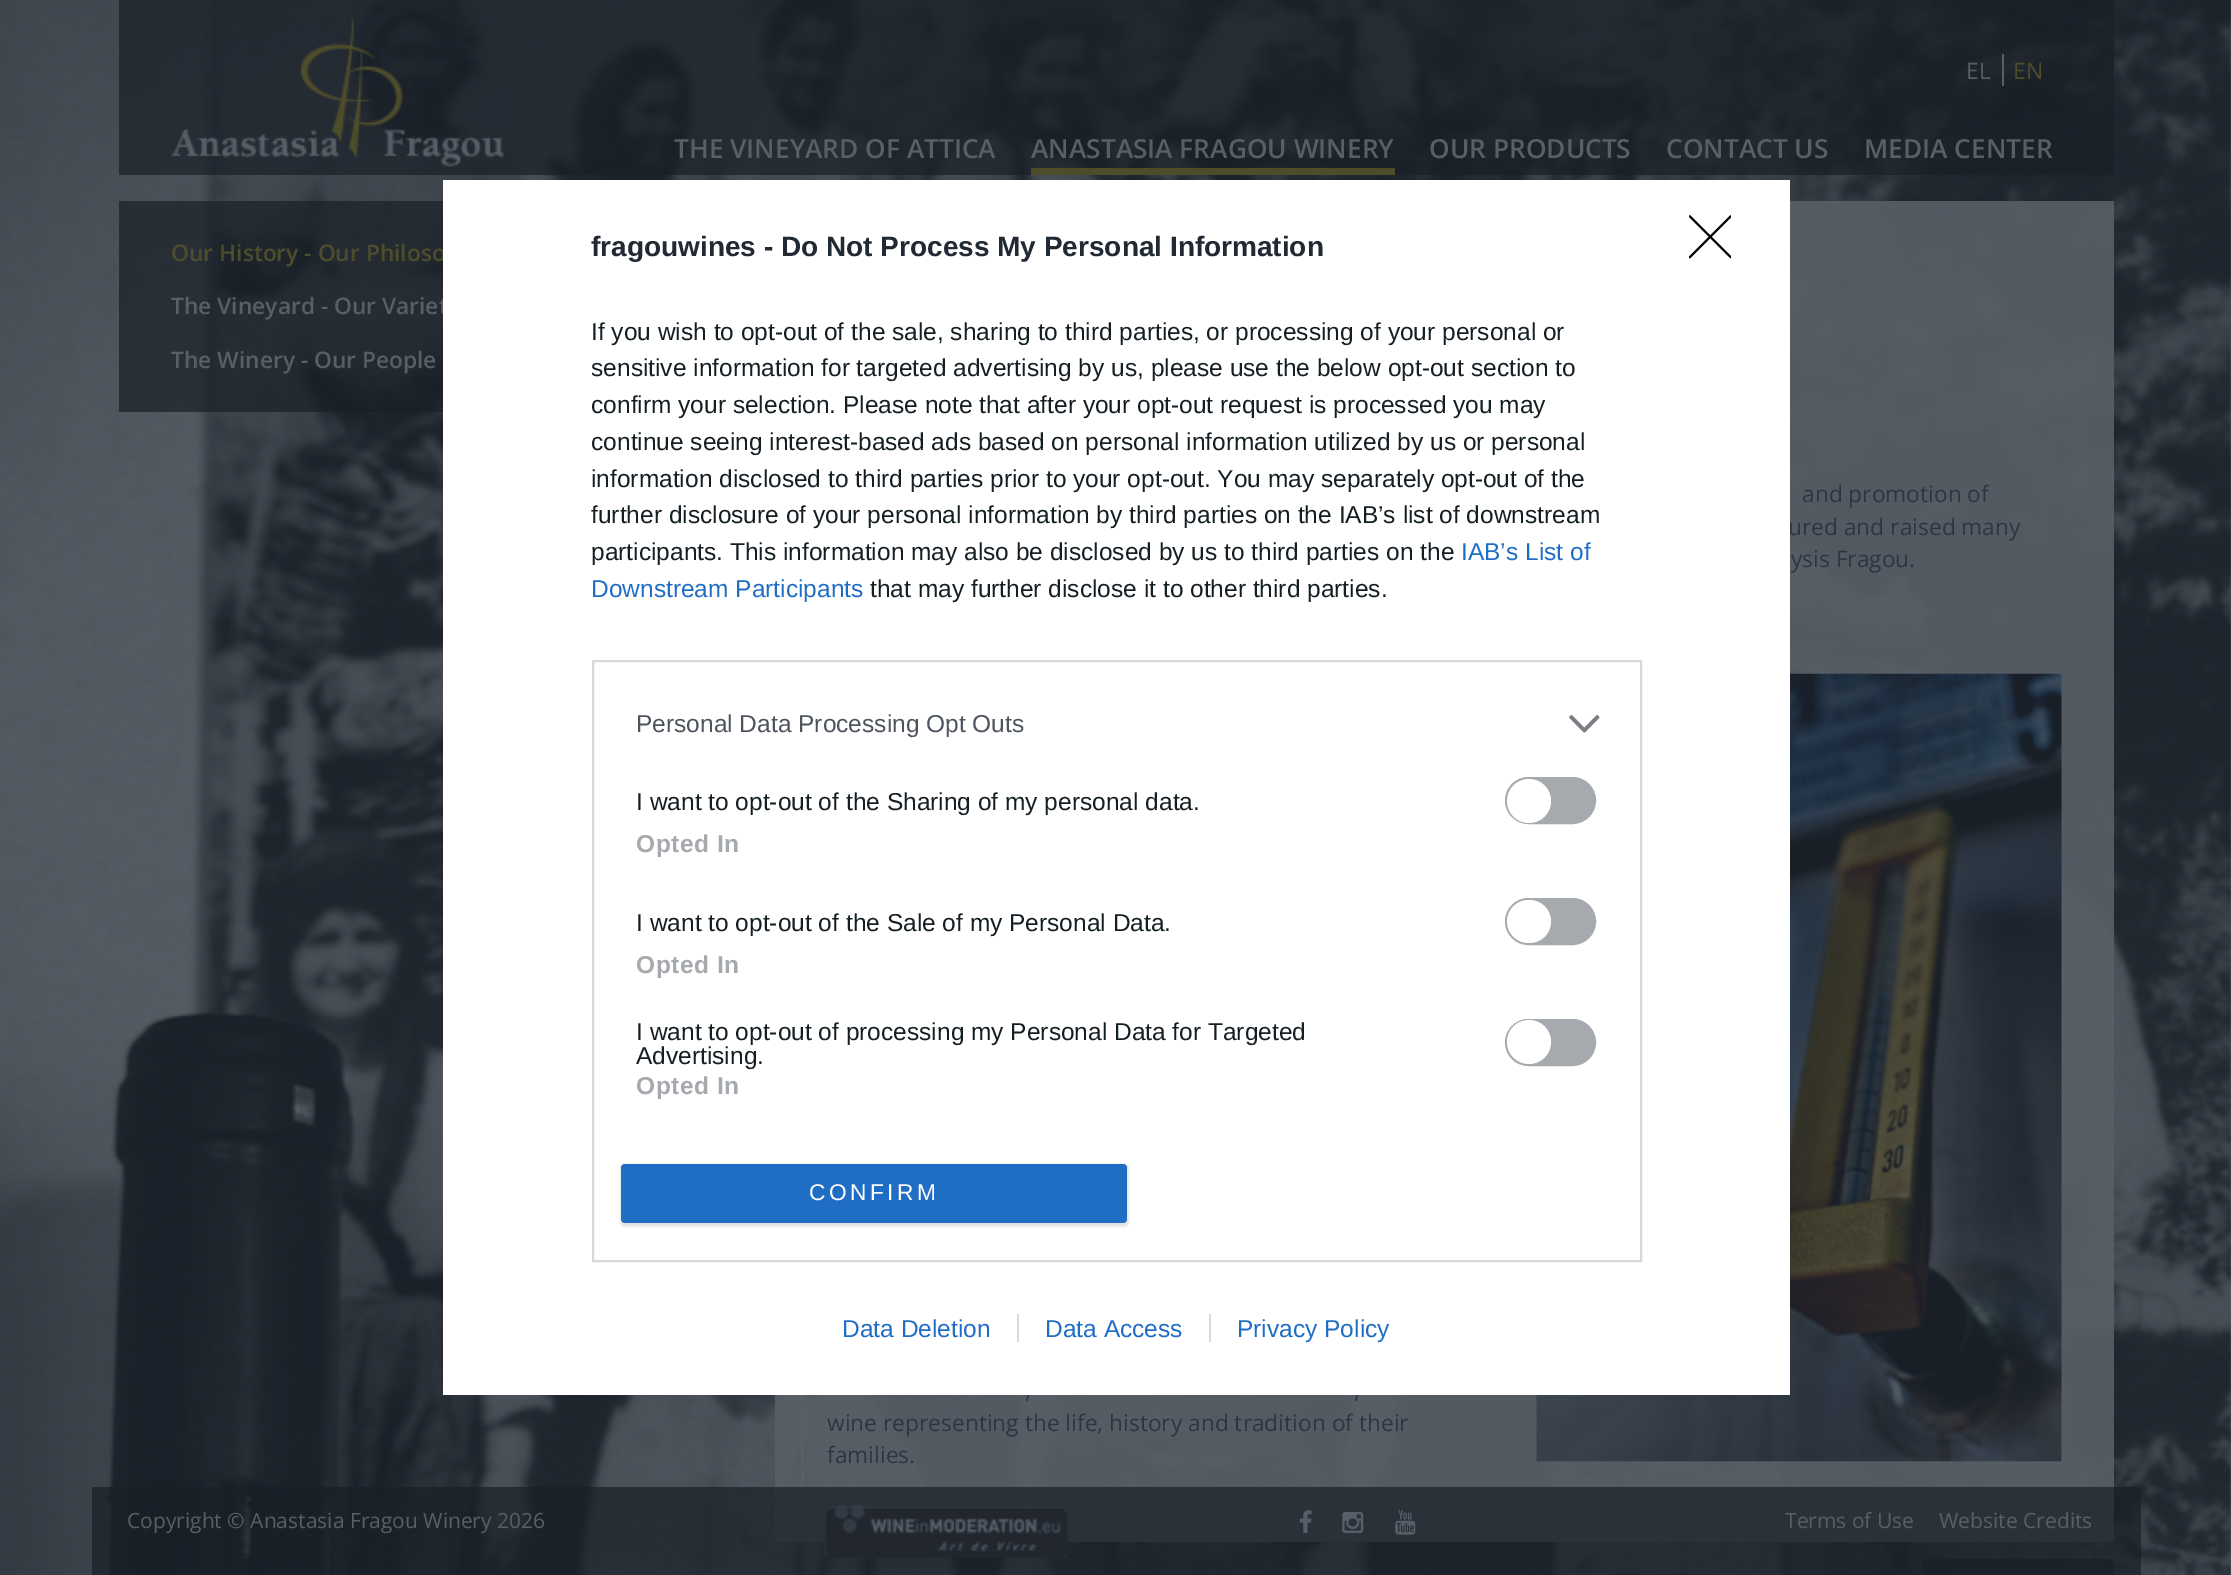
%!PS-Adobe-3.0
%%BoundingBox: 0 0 2231 1575
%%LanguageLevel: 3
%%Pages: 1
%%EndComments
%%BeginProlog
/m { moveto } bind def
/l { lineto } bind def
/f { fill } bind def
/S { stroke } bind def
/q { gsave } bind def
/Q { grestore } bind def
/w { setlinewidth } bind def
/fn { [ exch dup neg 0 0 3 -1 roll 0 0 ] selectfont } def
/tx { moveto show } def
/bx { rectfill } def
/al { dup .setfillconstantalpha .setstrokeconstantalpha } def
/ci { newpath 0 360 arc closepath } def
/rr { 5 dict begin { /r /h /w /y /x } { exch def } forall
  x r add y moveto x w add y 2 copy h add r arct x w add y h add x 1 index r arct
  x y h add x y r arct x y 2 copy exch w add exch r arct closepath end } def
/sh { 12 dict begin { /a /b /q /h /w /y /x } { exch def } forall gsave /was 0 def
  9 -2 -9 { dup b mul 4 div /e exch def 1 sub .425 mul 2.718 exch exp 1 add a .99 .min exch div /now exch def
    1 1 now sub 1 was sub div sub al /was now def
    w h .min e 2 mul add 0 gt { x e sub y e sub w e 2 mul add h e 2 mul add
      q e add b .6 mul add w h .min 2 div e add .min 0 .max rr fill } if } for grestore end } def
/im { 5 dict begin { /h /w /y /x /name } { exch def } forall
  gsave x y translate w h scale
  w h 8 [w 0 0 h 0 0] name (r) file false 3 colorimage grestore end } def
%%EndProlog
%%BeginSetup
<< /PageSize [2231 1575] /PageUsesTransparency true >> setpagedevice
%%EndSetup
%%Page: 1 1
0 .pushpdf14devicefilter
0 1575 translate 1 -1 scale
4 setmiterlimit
1 setgray
0 0 2231 1575 bx
(image0.raw) 0 0 2231 1575 im
0.7 al
0.098 0.122 0.153 setrgbcolor
119 0 1995 175 bx
1 al
(image1.raw) 171 17 333 150 im
/OpenSans-Regular 22.75 fn
0.349 0.373 0.404 setrgbcolor
(EL) 1966 79 tx
2002 54 2 32 bx
0.306 0.302 0.169 setrgbcolor
(EN) 2013 79 tx
/OpenSans-SemiBold 26.25 fn
0.349 0.373 0.404 setrgbcolor
(THE VINEYARD OF ATTICA) 674 158 tx
0.306 0.302 0.169 setrgbcolor
1031 168 364 7 bx
0.349 0.373 0.404 setrgbcolor
(ANASTASIA FRAGOU WINERY) 1031 158 tx
(OUR PRODUCTS) 1429 158 tx
(CONTACT US) 1666 158 tx
(MEDIA CENTER) 1864 158 tx
0.7 al
0.098 0.122 0.153 setrgbcolor
119 201 324 211 bx
/OpenSans-SemiBold 22.75 fn
1 al
0.306 0.302 0.169 setrgbcolor
(Our History - Our Philoso) 171 261 tx
0.349 0.373 0.404 setrgbcolor
(The Vineyard - Our Variet) 171 314 tx
(The Winery - Our People) 171 368 tx
0.9 al
775 1395 29 147 bx
801 201 1313 1341 bx
/OpenSans-Regular 22.75 fn
1 al
0.173 0.212 0.255 setrgbcolor
(and promotion of) 1802 502 tx
(ured and raised many) 1788 535 tx
(ysis Fragou.) 1791 567 tx
(,) 1025 1398 tx
(,) 1354 1398 tx
(wine representing the life, history and tradition of their) 827 1431 tx
(families.) 827 1463 tx
(image2.raw) 1536 673 526 789 im
0.7 al
0.098 0.122 0.153 setrgbcolor
1923 1559 191 16 bx
1 al
1 setgray
443 180 1347 1215 bx
/LiberationSans-Bold 28 fn
0.129 0.161 0.204 setrgbcolor
(fragouwines - Do Not Process My Personal Information) 591 256 tx
/LiberationSans-Regular 24.5 fn
0.078 0.118 0.137 setrgbcolor
(If you wish to opt-out of the sale, sharing to third parties, or processing of your personal or) 591 340 tx
q
592 287 1050 347 rectclip
(sensitive information for targeted advertising by us, please use the below opt-out section to) 591 376 tx
(confirm your selection. Please note that after your opt-out request is processed you may) 591 413 tx
(continue seeing interest-based ads based on personal information utilized by us or personal) 591 450 tx
Q
(information disclosed to third parties prior to your opt-out. You may separately opt-out of the) 591 487 tx
(further disclosure of your personal information by third parties on the IAB’s list of downstream) 591 523 tx
(participants. This information may also be disclosed by us to third parties on the) 591 560 tx
0.125 0.427 0.773 setrgbcolor
(IAB’s List of) 1461 560 tx
(Downstream Participants) 591 597 tx
0.078 0.118 0.137 setrgbcolor
(that may further disclose it to other third parties.) 870 597 tx
0.847 setgray
2 w
593 661 1048 600 rectstroke
0.302 0.329 0.365 setrgbcolor
(Personal Data Processing Opt Outs) 636 732 tx
(image3.raw) 1569 715 31 18 im
0.078 0.118 0.137 setrgbcolor
(I want to opt-out of the Sharing of my personal data.) 636 810 tx
0.651 0.663 0.682 setrgbcolor
1506 778 89 45 22.5 rr q f Q
S
1 setgray
1529 801 22 ci f
/LiberationSans-Bold 24.5 fn
0.651 0.663 0.682 setrgbcolor
636 852 m 0.5 0 (Opted In) ashow
/LiberationSans-Regular 24.5 fn
0.078 0.118 0.137 setrgbcolor
(I want to opt-out of the Sale of my Personal Data.) 636 931 tx
0.651 0.663 0.682 setrgbcolor
1506 899 89 45 22.5 rr q f Q
S
1 setgray
1507 900 44 43 21.5 rr f
/LiberationSans-Bold 24.5 fn
0.651 0.663 0.682 setrgbcolor
636 973 m 0.5 0 (Opted In) ashow
/LiberationSans-Regular 24.5 fn
0.078 0.118 0.137 setrgbcolor
(I want to opt-out of processing my Personal Data for Targeted) 636 1040 tx
(Advertising.) 636 1064 tx
0.651 0.663 0.682 setrgbcolor
1506 1020 89 45 22.5 rr q f Q
S
1 setgray
1529 1042 22 ci f
/LiberationSans-Bold 24.5 fn
0.651 0.663 0.682 setrgbcolor
636 1094 m 0.5 0 (Opted In) ashow
0 setgray
620 1164 509 63 5 1 0.1 sh
0.125 0.427 0.773 setrgbcolor
621 1164 506 59 4 rr f
/LiberationSans-Regular 22.75 fn
1 setgray
809 1200 m 3.5 0 (CONFIRM) ashow
q
1689 215 42 44 rectclip
0 setgray
1.8 w
1 setlinecap
1 setlinejoin
1689.5 216 m 1731 257.5 l 1731 216 m 1689.5 257.5 l S
Q
/LiberationSans-Regular 24.5 fn
0.125 0.427 0.773 setrgbcolor
(Data Deletion) 842 1337 tx
(Data Access) 1045 1337 tx
0.847 setgray
1017 1314 2 28 bx
0.125 0.427 0.773 setrgbcolor
(Privacy Policy) 1237 1337 tx
0.847 setgray
1209 1314 2 28 bx
0.7 al
0.098 0.122 0.153 setrgbcolor
92 1487 2049 88 bx
/OpenSans-Regular 21 fn
1 al
0.349 0.373 0.404 setrgbcolor
(Copyright © Anastasia Fragou Winery 2026) 127 1528 tx
(image4.raw) 824 1505 244 53 im
(image5.raw) 1299 1510 13 23 im
(image6.raw) 1342 1512 22 21 im
(image7.raw) 1395 1510 21 25 im
(Terms of Use) 1785 1528 tx
(Website Credits) 1939 1528 tx
.poppdf14devicefilter showpage
%%EOF
